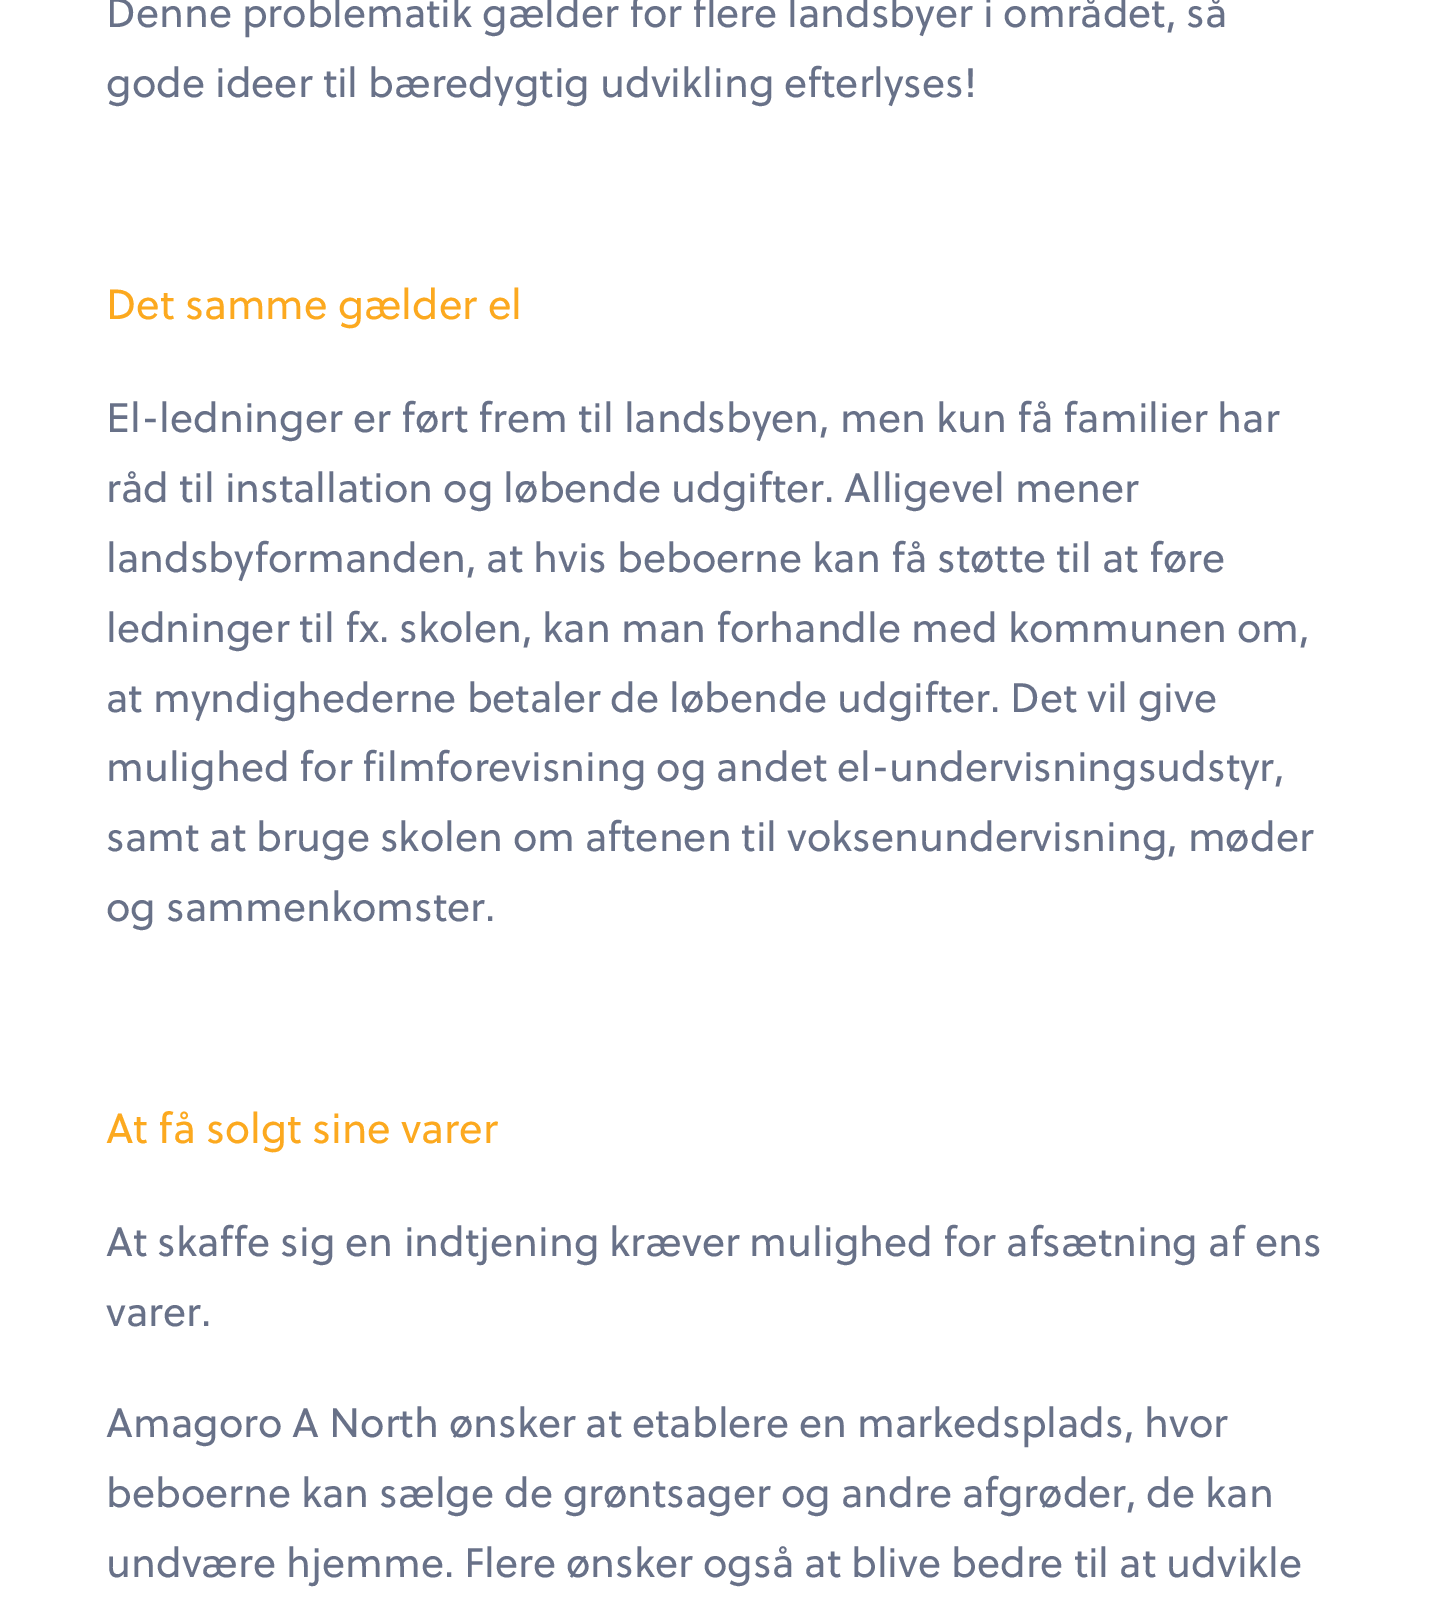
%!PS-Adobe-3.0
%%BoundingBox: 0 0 1436 1600
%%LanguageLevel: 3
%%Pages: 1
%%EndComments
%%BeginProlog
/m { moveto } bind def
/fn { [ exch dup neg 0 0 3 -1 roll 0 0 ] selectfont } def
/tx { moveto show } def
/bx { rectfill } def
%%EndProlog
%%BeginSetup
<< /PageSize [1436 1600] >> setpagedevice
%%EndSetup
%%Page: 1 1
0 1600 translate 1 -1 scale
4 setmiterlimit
1 setgray
0 0 1436 1600 bx
/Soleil-Regular 41.15 fn
0.408 0.443 0.533 setrgbcolor
106 27 m -0.25 0 32 (Denne problematik gælder for flere landsbyer i området, så) widthshow
(gode ideer til bæredygtig udvikling efterlyses!) 106 97 tx
/Soleil-Regular 42 fn
0.988 0.663 0.122 setrgbcolor
(Det samme gælder el) 106 319 tx
/Soleil-Regular 41.15 fn
0.408 0.443 0.533 setrgbcolor
106 432 m -0.1 0 32 (El-ledninger er ført frem til landsbyen, men kun få familier har) widthshow
106 502 m -0.25 0 32 (råd til installation og løbende udgifter. Alligevel mener) widthshow
106 572 m -0.1 0 32 (landsbyformanden, at hvis beboerne kan få støtte til at føre) widthshow
106 642 m -0.25 0 32 (ledninger til fx. skolen, kan man forhandle med kommunen om,) widthshow
106 712 m -0.25 0 32 (at myndighederne betaler de løbende udgifter. Det vil give) widthshow
106 781 m -0.25 0 32 (mulighed for filmforevisning og andet el-undervisningsudstyr,) widthshow
106 851 m -0.25 0 32 (samt at bruge skolen om aftenen til voksenundervisning, møder) widthshow
(og sammenkomster.) 106 921 tx
/Soleil-Regular 42 fn
0.988 0.663 0.122 setrgbcolor
(At få solgt sine varer) 106 1143 tx
/Soleil-Regular 41.15 fn
0.408 0.443 0.533 setrgbcolor
106 1256 m -0.1 0 32 (At skaffe sig en indtjening kræver mulighed for afsætning af ens) widthshow
(varer.) 106 1326 tx
106 1437 m -0.25 0 32 (Amagoro A North ønsker at etablere en markedsplads, hvor) widthshow
106 1507 m -0.25 0 32 (beboerne kan sælge de grøntsager og andre afgrøder, de kan) widthshow
106 1577 m -0.1 0 32 (undvære hjemme. Flere ønsker også at blive bedre til at udvikle) widthshow
showpage
%%EOF
